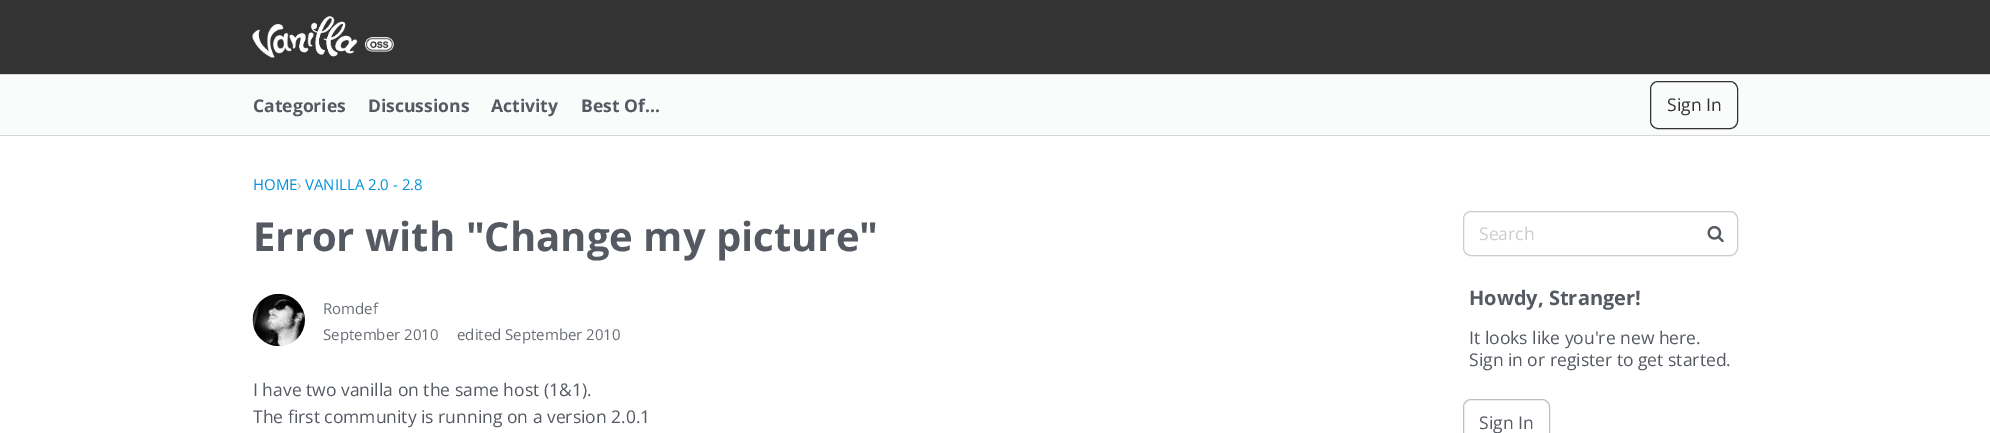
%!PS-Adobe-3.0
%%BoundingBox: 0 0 1990 433
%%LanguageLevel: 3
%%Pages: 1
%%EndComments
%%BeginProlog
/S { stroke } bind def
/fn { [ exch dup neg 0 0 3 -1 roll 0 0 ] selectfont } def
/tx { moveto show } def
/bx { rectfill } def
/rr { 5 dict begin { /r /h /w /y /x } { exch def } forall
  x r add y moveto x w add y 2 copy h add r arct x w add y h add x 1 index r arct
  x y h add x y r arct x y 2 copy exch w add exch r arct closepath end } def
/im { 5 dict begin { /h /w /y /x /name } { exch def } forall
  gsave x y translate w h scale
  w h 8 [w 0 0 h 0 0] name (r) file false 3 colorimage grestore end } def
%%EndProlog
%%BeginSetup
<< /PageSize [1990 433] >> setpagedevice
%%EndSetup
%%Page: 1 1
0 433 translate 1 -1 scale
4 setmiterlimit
1 setgray
0 0 1990 433 bx
0.2 setgray
0 0 1990 74 bx
0.839 0.843 0.851 setrgbcolor
0 74 1990 1 bx
(image0.raw) 252 16 142 42 im
0.98 0.984 0.984 setrgbcolor
0 75 1990 60 bx
0.839 0.843 0.851 setrgbcolor
0 135 1990 1 bx
/OpenSans-Bold 17.5 fn
0.333 0.353 0.384 setrgbcolor
(Categories) 253 112 tx
(Discussions) 368 112 tx
(Activity) 491 112 tx
(Best Of...) 581 112 tx
0.2 setgray
1650.5 81.5 87 47 7.5 rr S
/OpenSans-Regular 17.5 fn
(Sign In) 1667 111 tx
/OpenSans-Regular 15 fn
0.008 0.569 0.859 setrgbcolor
(HOME) 253 190 tx
0.667 0.678 0.694 setrgbcolor
(›) 297 190 tx
0.008 0.569 0.859 setrgbcolor
(VANILLA 2.0 - 2.8) 305 190 tx
/OpenSans-Bold 40 fn
0.333 0.353 0.384 setrgbcolor
(Error with "Change my picture") 253 251 tx
(image1.raw) 252 293 53 54 im
/OpenSans-Regular 15 fn
0.412 0.431 0.459 setrgbcolor
(Romdef) 323 314 tx
(September 2010) 323 340 tx
(edited September 2010) 457 340 tx
/OpenSans-Regular 17.5 fn
0.333 0.353 0.384 setrgbcolor
(I have two vanilla on the same host \(1&1\).) 253 396 tx
(The first community is running on a version 2.0.1) 253 423 tx
0.8 setgray
1463.5 211.5 274 44 7.5 rr S
(Search) 1479 240 tx
(image2.raw) 1707 226 17 17 im
/OpenSans-Bold 20 fn
0.333 0.353 0.384 setrgbcolor
(Howdy, Stranger!) 1469 305 tx
/OpenSans-Regular 17.5 fn
(It looks like you're new here.) 1469 344 tx
(Sign in or register to get started.) 1469 366 tx
0.737 0.745 0.757 setrgbcolor
1463.5 399.5 86 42 7.5 rr S
0.333 0.353 0.384 setrgbcolor
(Sign In) 1479 429 tx
showpage
%%EOF
